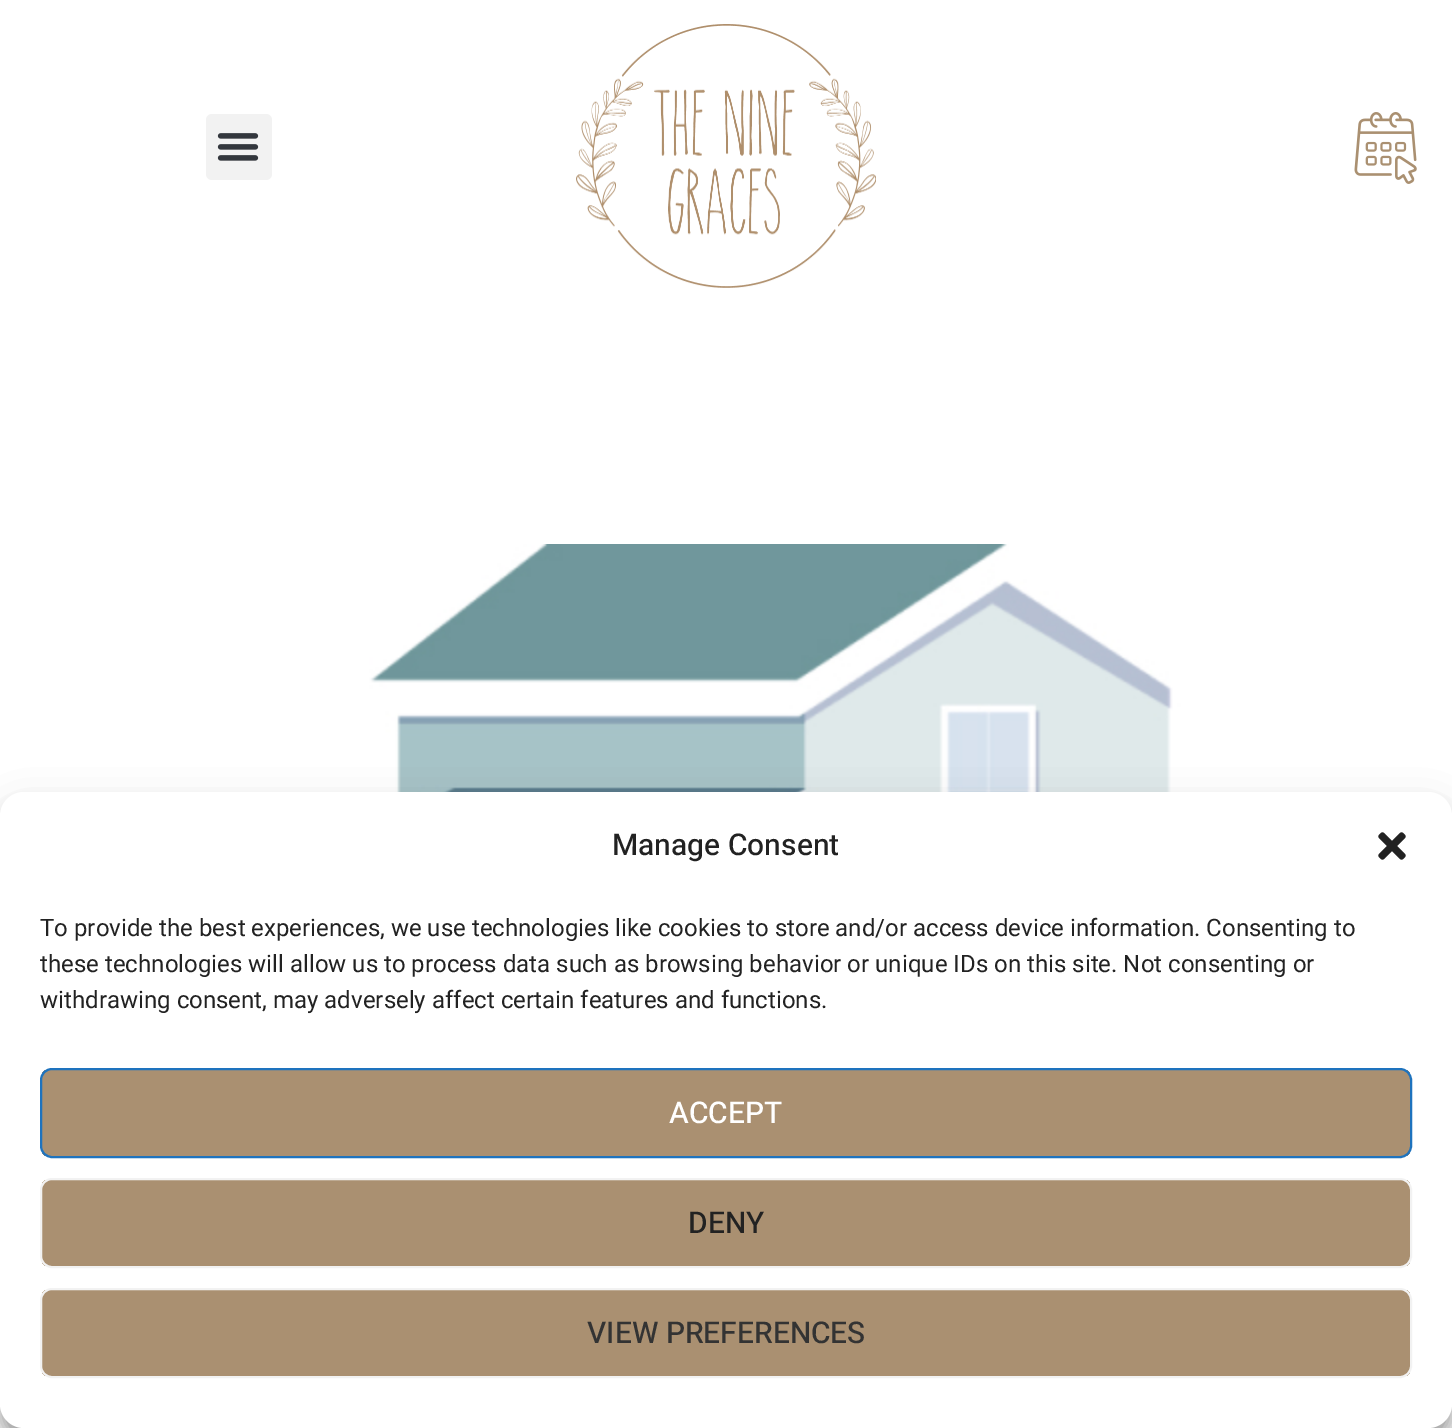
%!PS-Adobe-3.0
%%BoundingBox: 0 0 1452 1428
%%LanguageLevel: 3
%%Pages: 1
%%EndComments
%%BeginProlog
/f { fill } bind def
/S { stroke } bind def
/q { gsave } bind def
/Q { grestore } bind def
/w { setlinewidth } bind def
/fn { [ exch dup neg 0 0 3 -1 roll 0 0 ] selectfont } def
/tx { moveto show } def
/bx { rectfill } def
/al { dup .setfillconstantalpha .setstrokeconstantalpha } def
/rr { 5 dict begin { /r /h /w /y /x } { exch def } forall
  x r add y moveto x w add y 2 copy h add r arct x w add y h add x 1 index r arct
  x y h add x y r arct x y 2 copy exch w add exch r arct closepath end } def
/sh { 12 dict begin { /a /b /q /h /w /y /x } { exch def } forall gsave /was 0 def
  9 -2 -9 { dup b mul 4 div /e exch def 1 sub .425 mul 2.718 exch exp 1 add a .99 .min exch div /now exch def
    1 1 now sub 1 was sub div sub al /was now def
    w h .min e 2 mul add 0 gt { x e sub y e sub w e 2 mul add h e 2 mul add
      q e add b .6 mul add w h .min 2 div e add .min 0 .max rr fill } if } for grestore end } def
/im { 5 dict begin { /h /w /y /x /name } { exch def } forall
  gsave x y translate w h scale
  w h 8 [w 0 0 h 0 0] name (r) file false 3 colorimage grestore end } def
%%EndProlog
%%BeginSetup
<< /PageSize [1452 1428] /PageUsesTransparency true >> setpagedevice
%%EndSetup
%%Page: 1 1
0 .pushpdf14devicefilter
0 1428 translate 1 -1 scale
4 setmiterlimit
1 setgray
0 0 1452 1428 bx
0.949 setgray
206 114 66 66 6 rr f
(image0.raw) 217 133 42 28 im
(image1.raw) 576 24 300 264 im
(image2.raw) 1354 112 63 72 im
(image3.raw) 242 544 974 248 im
0 setgray
0 804 1452 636 24 6 0.23 sh
0 812 1452 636 24 20 0.19 sh
1 setgray
0 792 1452 636 24 rr f
/Heebo-Medium 30 fn
0.133 setgray
(Manage Consent) 612 855 tx
(image4.raw) 1378 832 28 28 im
/Heebo-Regular 24 fn
(To provide the best experiences, we use technologies like cookies to store and/or access device information. Consenting to) 40 936 tx
(these technologies will allow us to process data such as browsing behavior or unique IDs on this site. Not consenting or) 40 972 tx
(withdrawing consent, may adversely affect certain features and functions.) 40 1008 tx
q
40 1068 1372 90 12 rr clip newpath
0.667 0.565 0.443 setrgbcolor
42 1070 1368 86 bx
Q
0.118 0.451 0.745 setrgbcolor
2 w
41 1069 1370 88 11 rr S
/Heebo-Medium 30 fn
1 setgray
(ACCEPT) 669 1123 tx
q
40 1178 1372 90 12 rr clip newpath
0.667 0.565 0.443 setrgbcolor
42 1180 1368 86 bx
Q
0.949 setgray
41 1179 1370 88 11 rr S
0.133 setgray
(DENY) 688 1233 tx
q
40 1288 1372 90 12 rr clip newpath
0.667 0.565 0.443 setrgbcolor
42 1290 1368 86 bx
Q
0.949 setgray
41 1289 1370 88 11 rr S
0.2 setgray
(VIEW PREFERENCES) 587 1343 tx
.poppdf14devicefilter showpage
%%EOF
